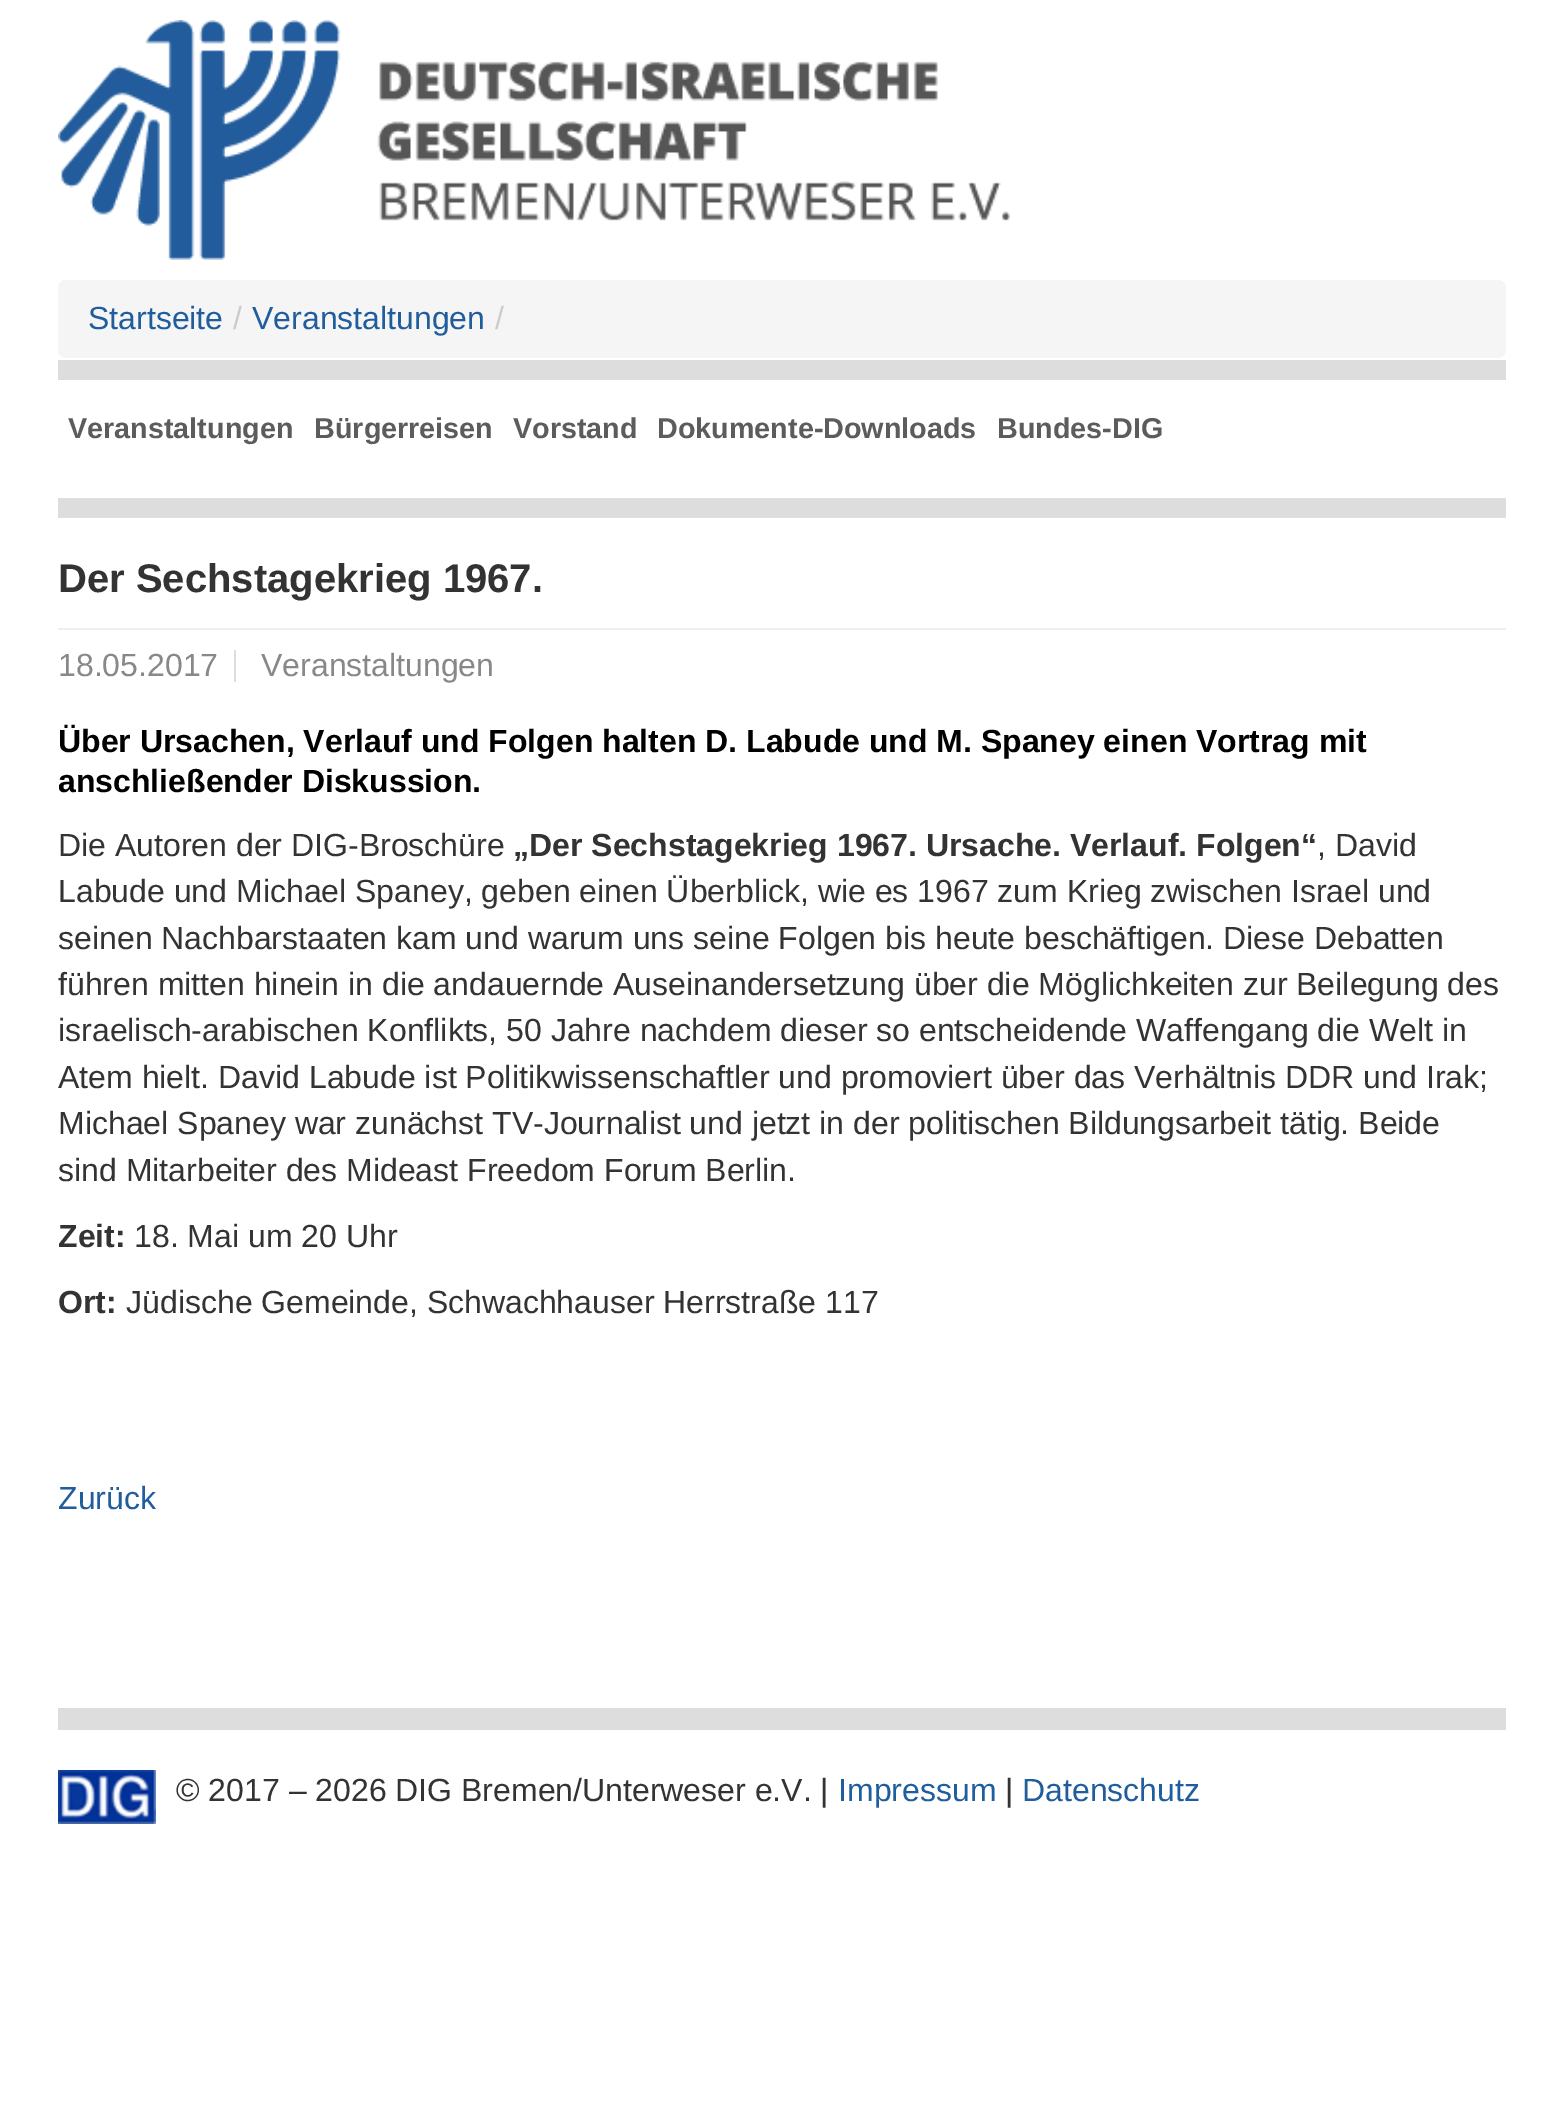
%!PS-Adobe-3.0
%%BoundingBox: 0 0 1564 2120
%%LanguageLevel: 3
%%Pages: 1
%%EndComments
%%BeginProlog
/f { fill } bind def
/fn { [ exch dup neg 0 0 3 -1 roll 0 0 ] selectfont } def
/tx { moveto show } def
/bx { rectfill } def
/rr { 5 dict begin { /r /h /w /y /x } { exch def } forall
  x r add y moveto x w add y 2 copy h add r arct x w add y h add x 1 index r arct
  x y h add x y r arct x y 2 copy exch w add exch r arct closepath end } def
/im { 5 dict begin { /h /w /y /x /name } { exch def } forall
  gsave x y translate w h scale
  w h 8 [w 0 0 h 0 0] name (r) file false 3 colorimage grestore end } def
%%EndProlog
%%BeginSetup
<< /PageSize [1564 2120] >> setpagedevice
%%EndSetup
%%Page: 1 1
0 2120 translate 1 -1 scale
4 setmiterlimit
1 setgray
0 0 1564 2120 bx
(image0.raw) 58 20 952 240 im
0.961 setgray
58 280 1448 78 8 rr f
/LiberationSans-Regular 32 fn
0.125 0.365 0.612 setrgbcolor
(Startseite) 88 329 tx
0.8 setgray
(/) 233 329 tx
0.125 0.365 0.612 setrgbcolor
(Veranstaltungen) 252 329 tx
0.8 setgray
(/) 495 329 tx
0.867 setgray
58 360 1448 20 bx
/LiberationSans-Bold 28.75 fn
0.361 setgray
(Veranstaltungen) 68 438 tx
(Bürgerreisen) 314 438 tx
(Vorstand) 513 438 tx
(Dokumente-Downloads) 657 438 tx
(Bundes-DIG) 997 438 tx
0.867 setgray
58 498 1448 20 bx
58 1708 1448 22 bx
/LiberationSans-Bold 40 fn
0.2 setgray
(Der Sechstagekrieg 1967.) 58 592 tx
0.933 setgray
58 628 1448 2 bx
0.867 setgray
234 650 2 32 bx
/LiberationSans-Regular 32 fn
0.533 setgray
(18.05.2017) 58 676 tx
(Veranstaltungen) 261 676 tx
/LiberationSans-Bold 32 fn
0 setgray
(Über Ursachen, Verlauf und Folgen halten D. Labude und M. Spaney einen Vortrag mit) 58 752 tx
(anschließender Diskussion.) 58 792 tx
/LiberationSans-Regular 32 fn
0.2 setgray
(Die Autoren der DIG-Broschüre) 58 856 tx
/LiberationSans-Bold 32 fn
(„Der Sechstagekrieg 1967. Ursache. Verlauf. Folgen“) 513 856 tx
/LiberationSans-Regular 32 fn
(, David) 1317 856 tx
(Labude und Michael Spaney, geben einen Überblick, wie es 1967 zum Krieg zwischen Israel und) 58 902 tx
(seinen Nachbarstaaten kam und warum uns seine Folgen bis heute beschäftigen. Diese Debatten) 58 949 tx
(führen mitten hinein in die andauernde Auseinandersetzung über die Möglichkeiten zur Beilegung des) 58 995 tx
(israelisch-arabischen Konflikts, 50 Jahre nachdem dieser so entscheidende Waffengang die Welt in) 58 1041 tx
(Atem hielt. David Labude ist Politikwissenschaftler und promoviert über das Verhältnis DDR und Irak;) 58 1088 tx
(Michael Spaney war zunächst TV-Journalist und jetzt in der politischen Bildungsarbeit tätig. Beide) 58 1134 tx
(sind Mitarbeiter des Mideast Freedom Forum Berlin.) 58 1181 tx
/LiberationSans-Bold 32 fn
(Zeit:) 58 1247 tx
/LiberationSans-Regular 32 fn
(18. Mai um 20 Uhr) 134 1247 tx
/LiberationSans-Bold 32 fn
(Ort:) 58 1313 tx
/LiberationSans-Regular 32 fn
(Jüdische Gemeinde, Schwachhauser Herrstraße 117) 126 1313 tx
0.125 0.365 0.612 setrgbcolor
(Zurück) 58 1509 tx
(image1.raw) 58 1770 98 54 im
0.2 setgray
(© 2017 – 2026 DIG Bremen/Unterweser e.V. |) 176 1801 tx
0.125 0.365 0.612 setrgbcolor
(Impressum) 838 1801 tx
0.2 setgray
(|) 1005 1801 tx
0.125 0.365 0.612 setrgbcolor
(Datenschutz) 1022 1801 tx
showpage
%%EOF
